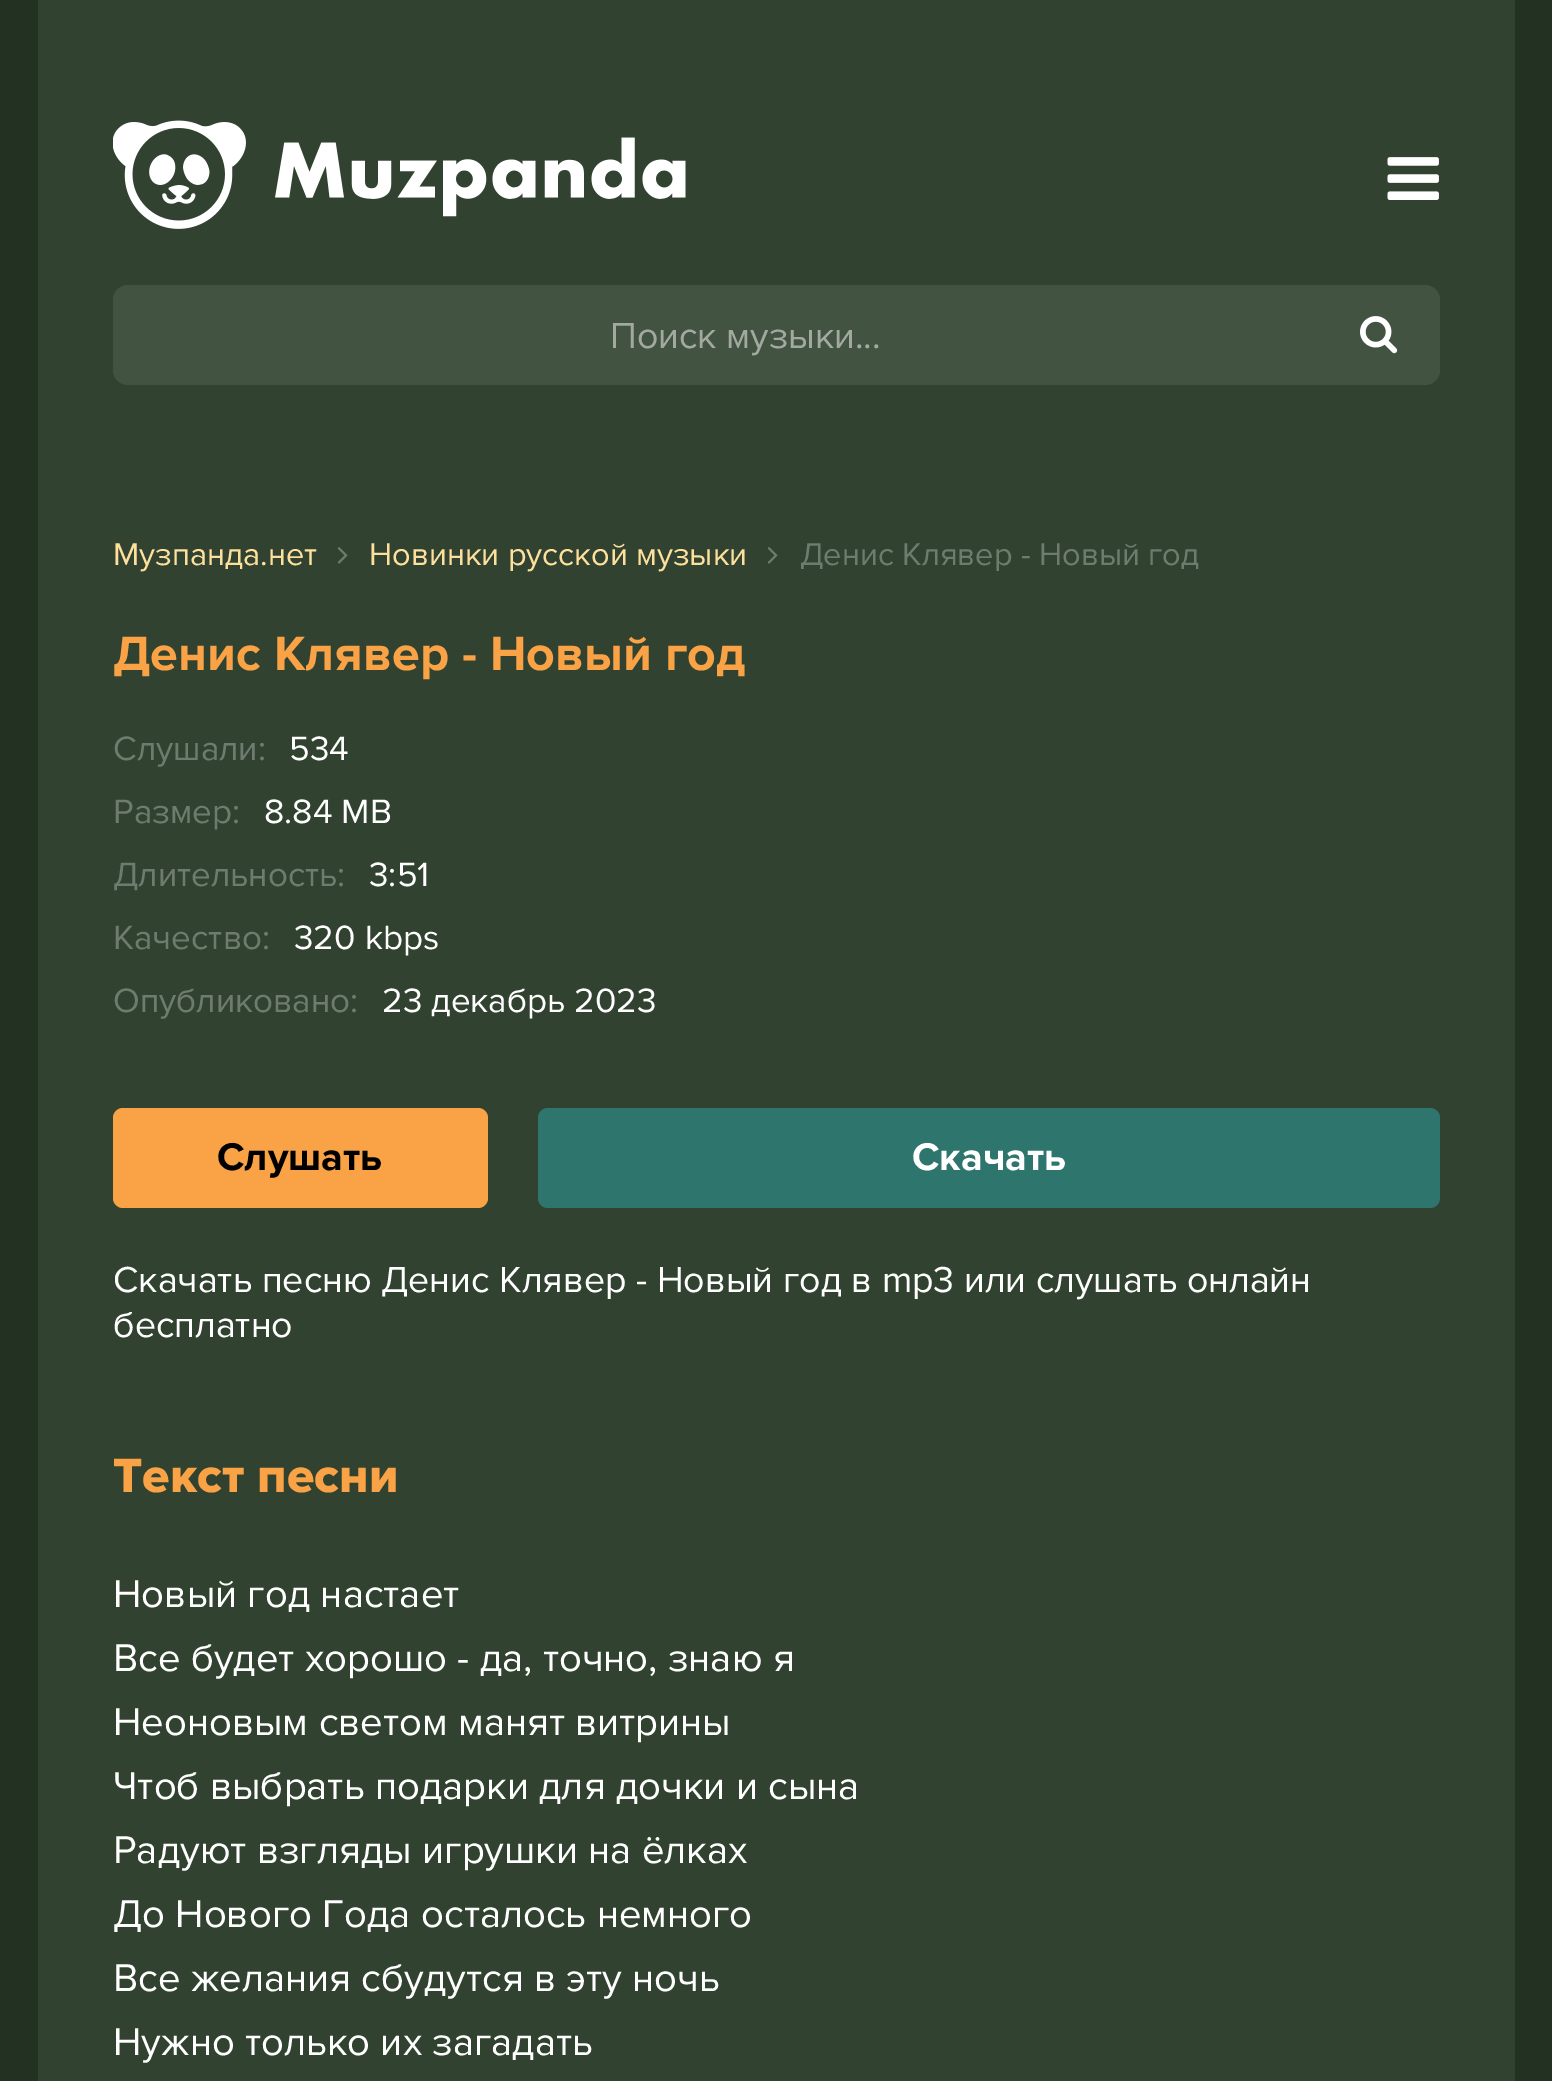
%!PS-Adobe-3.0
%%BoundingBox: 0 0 1552 2081
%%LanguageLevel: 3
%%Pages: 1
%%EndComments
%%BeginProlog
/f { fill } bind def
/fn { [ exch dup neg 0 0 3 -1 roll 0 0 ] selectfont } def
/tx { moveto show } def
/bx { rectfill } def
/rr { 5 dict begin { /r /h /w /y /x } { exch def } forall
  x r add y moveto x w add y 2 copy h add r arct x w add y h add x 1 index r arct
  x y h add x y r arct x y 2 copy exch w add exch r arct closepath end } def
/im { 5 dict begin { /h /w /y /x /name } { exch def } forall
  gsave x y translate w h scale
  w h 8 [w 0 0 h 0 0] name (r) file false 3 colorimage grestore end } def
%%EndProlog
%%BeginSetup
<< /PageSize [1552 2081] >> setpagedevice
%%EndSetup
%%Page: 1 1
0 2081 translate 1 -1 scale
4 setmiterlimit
0.137 0.192 0.133 setrgbcolor
0 0 1552 2081 bx
0.192 0.259 0.188 setrgbcolor
38 0 1477 2081 bx
(image0.raw) 113 120 573 109 im
(image1.raw) 1387 157 52 43 im
0.263 0.325 0.259 setrgbcolor
113 285 1327 100 15 rr f
/ProximaNova-Regular 37.5 fn
0.631 0.663 0.631 setrgbcolor
(Поиск музыки...) 610 348 tx
(image2.raw) 1360 316 38 38 im
/ProximaNova-Regular 32.5 fn
0.992 0.878 0.612 setrgbcolor
(Музпанда.нет) 113 565 tx
(image3.raw) 337 547 11 17 im
(Новинки русской музыки) 369 565 tx
(image3.raw) 767 547 11 17 im
0.439 0.482 0.439 setrgbcolor
(Денис Клявер - Новый год) 800 565 tx
/ProximaNova-Bold 50 fn
0.976 0.635 0.275 setrgbcolor
(Денис Клявер - Новый год) 113 670 tx
/ProximaNova-Regular 35 fn
0.439 0.482 0.439 setrgbcolor
(Слушали:) 113 760 tx
1 setgray
(534) 289 760 tx
0.439 0.482 0.439 setrgbcolor
(Размер:) 113 823 tx
1 setgray
(8.84 MB) 264 823 tx
0.439 0.482 0.439 setrgbcolor
(Длительность:) 113 886 tx
1 setgray
(3:51) 369 886 tx
0.439 0.482 0.439 setrgbcolor
(Качество:) 113 949 tx
1 setgray
(320 kbps) 294 949 tx
0.439 0.482 0.439 setrgbcolor
(Опубликовано:) 113 1012 tx
1 setgray
(23 декабрь 2023) 382 1012 tx
0.976 0.635 0.275 setrgbcolor
113 1108 375 100 10 rr f
/ProximaNova-Bold 40 fn
0 setgray
(Слушать) 217 1170 tx
0.18 0.459 0.431 setrgbcolor
538 1108 902 100 10 rr f
1 setgray
(Скачать) 912 1170 tx
/ProximaNova-Regular 37.5 fn
(Скачать песню Денис Клявер - Новый год в mp3 или слушать онлайн) 113 1292 tx
(бесплатно) 113 1337 tx
/ProximaNova-ExtraBold 50 fn
0.976 0.635 0.275 setrgbcolor
(Текст песни) 113 1492 tx
/ProximaNova-Regular 40 fn
1 setgray
(Новый год настает) 113 1607 tx
(Все будет хорошо - да, точно, знаю я) 113 1671 tx
(Неоновым светом манят витрины) 113 1735 tx
(Чтоб выбрать подарки для дочки и сына) 113 1799 tx
(Радуют взгляды игрушки на ёлках) 113 1863 tx
(До Нового Года осталось немного) 113 1927 tx
(Все желания сбудутся в эту ночь) 113 1991 tx
(Нужно только их загадать) 113 2055 tx
showpage
%%EOF
